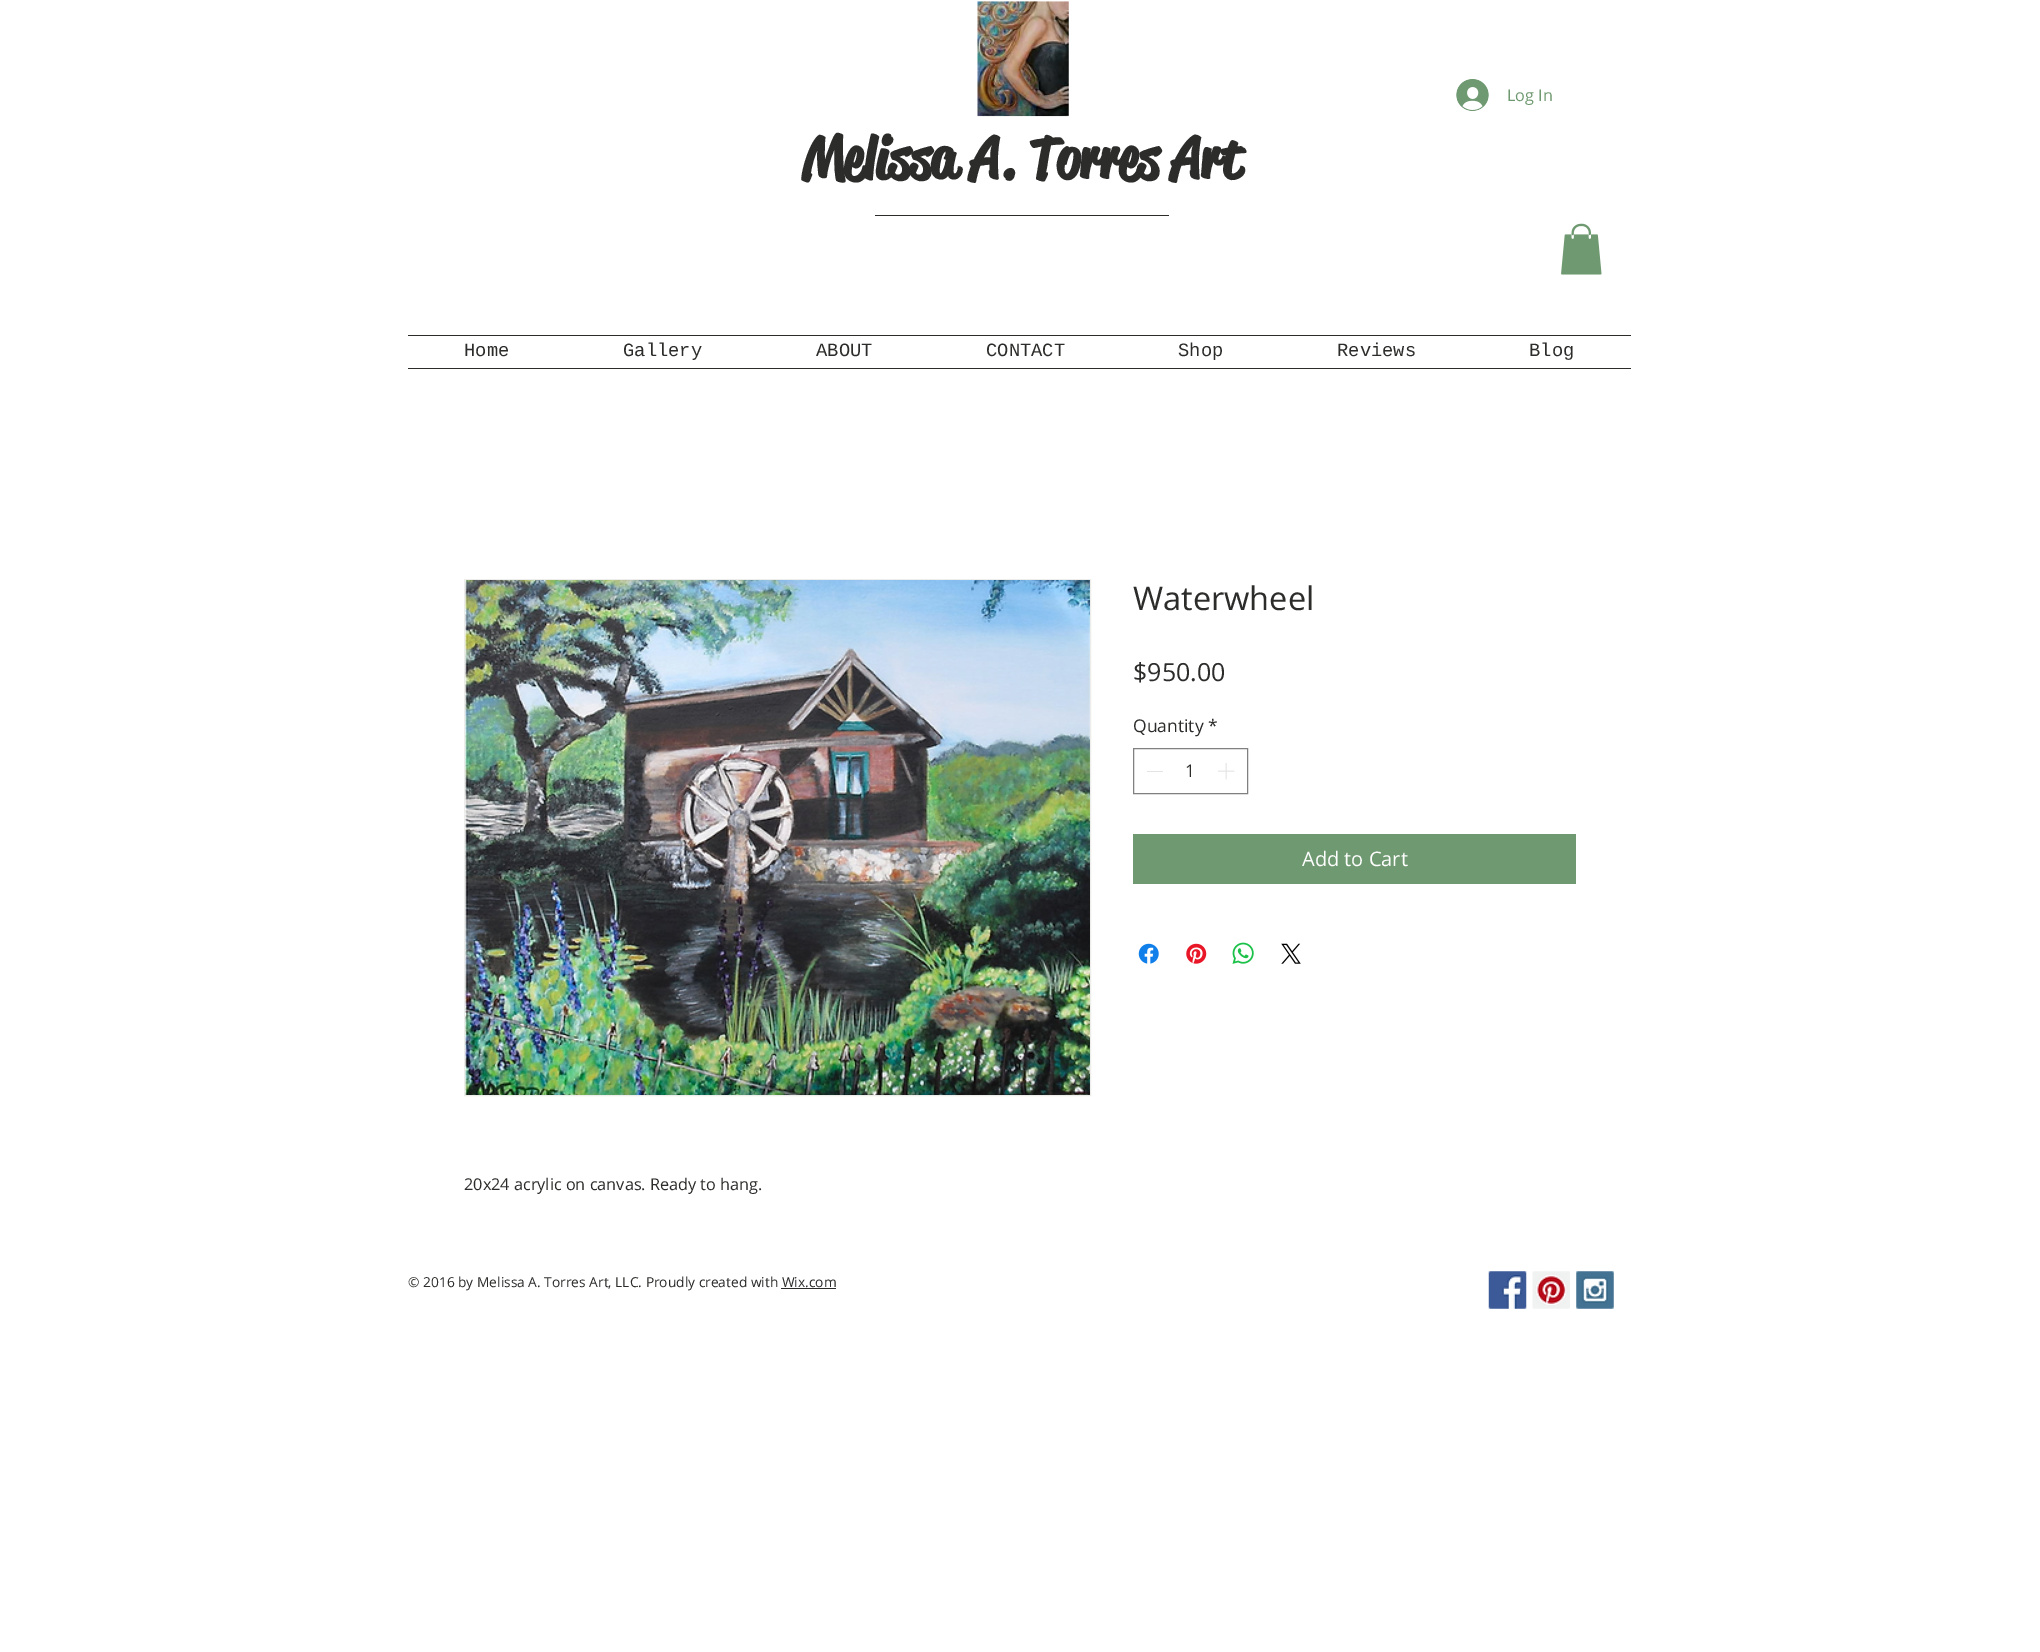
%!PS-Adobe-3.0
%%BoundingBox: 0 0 2040 1652
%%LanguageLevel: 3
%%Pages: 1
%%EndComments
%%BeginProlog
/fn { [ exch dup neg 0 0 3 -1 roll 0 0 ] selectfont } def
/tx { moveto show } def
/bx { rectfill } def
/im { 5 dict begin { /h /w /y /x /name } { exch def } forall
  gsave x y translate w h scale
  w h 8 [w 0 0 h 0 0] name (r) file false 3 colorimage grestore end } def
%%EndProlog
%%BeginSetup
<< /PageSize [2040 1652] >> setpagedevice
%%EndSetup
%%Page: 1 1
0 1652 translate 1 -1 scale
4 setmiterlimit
1 setgray
0 0 2040 1652 bx
(image0.raw) 977 1 92 116 im
(image1.raw) 1456 79 33 32 im
/OpenSans-Regular 16.25 fn
0.435 0.6 0.443 setrgbcolor
(Log In) 1507 101 tx
/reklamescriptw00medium-Bold 57.5 fn
0.173 0.173 0.169 setrgbcolor
(Melissa A. Torres Art) 802 178 tx
875 215 294 1 bx
(image2.raw) 1561 223 41 52 im
408 335 1223 1 bx
408 368 1223 1 bx
/LiberationMono-Regular 18.75 fn
(Home) 464 356 tx
(Gallery) 623 356 tx
(ABOUT) 816 356 tx
(CONTACT) 986 356 tx
(Shop) 1178 356 tx
(Reviews) 1337 356 tx
(Blog) 1529 356 tx
/OpenSans-Regular 32.5 fn
(Waterwheel) 1133 610 tx
/OpenSans-Regular 25 fn
($950.00) 1133 681 tx
/OpenSans-Regular 17.5 fn
(Quantity) 1133 732 tx
(*) 1208 732 tx
0.502 setgray
1133.5 748.5 114 45 rectstroke
0.89 setgray
1147 771 16 1 bx
0.173 0.173 0.169 setrgbcolor
(1) 1185 777 tx
(image3.raw) 1218 763 17 17 im
0.435 0.6 0.443 setrgbcolor
1133 834 443 50 bx
/OpenSans-Regular 20 fn
1 setgray
(Add to Cart) 1302 866 tx
(image4.raw) 1138 943 21 21 im
(image5.raw) 1186 943 21 21 im
(image6.raw) 1232 942 22 22 im
(image7.raw) 1281 943 20 21 im
0.929 0.929 0.925 setrgbcolor
464.5 579.5 626 516 rectstroke
(image8.raw) 465 580 625 515 im
/OpenSans-Regular 16.25 fn
0.173 0.173 0.169 setrgbcolor
(20x24 acrylic on canvas. Ready to hang.) 464 1190 tx
/OpenSans-Regular 13.75 fn
(© 2016 by Melissa A. Torres Art, LLC. Proudly created with Wix.com) 408 1287 tx
781 1288 55 1 bx
(image9.raw) 1488 1271 39 38 im
(image10.raw) 1532 1271 38 38 im
(image11.raw) 1576 1271 38 38 im
showpage
%%EOF
